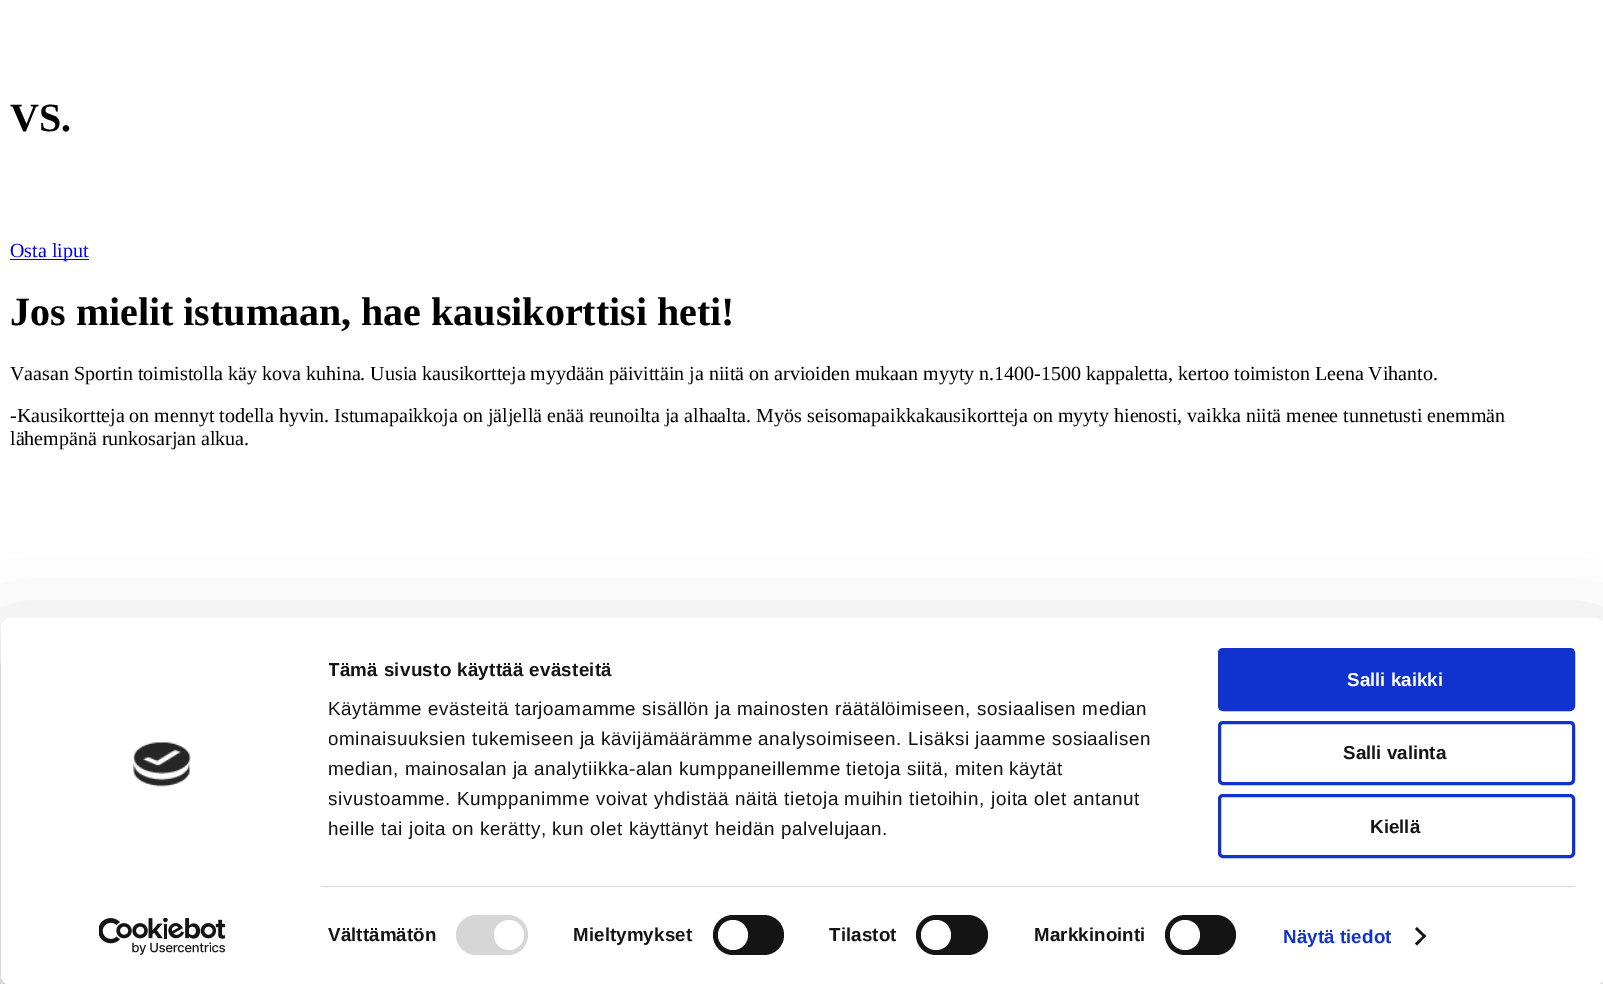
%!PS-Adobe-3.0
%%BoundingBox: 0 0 1603 984
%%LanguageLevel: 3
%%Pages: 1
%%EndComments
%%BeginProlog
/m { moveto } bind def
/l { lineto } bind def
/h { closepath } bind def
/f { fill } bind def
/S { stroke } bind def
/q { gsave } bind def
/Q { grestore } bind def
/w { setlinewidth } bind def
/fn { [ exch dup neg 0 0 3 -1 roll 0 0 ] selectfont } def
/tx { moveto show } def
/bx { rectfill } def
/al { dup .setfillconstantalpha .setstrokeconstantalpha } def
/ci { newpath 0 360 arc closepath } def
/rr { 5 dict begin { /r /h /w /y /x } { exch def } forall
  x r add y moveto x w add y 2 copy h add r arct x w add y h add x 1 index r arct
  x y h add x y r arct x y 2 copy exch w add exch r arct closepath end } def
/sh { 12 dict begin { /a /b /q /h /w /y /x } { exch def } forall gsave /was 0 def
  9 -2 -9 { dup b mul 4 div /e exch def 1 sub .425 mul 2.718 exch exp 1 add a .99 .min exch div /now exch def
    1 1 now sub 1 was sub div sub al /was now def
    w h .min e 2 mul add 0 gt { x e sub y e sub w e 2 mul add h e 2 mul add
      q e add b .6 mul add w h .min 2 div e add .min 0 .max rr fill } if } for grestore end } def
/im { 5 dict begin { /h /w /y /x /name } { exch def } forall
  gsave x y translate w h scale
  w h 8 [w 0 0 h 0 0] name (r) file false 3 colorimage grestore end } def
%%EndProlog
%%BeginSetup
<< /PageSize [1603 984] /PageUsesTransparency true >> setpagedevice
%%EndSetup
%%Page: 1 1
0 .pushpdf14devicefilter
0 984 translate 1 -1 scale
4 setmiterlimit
1 setgray
0 0 1603 984 bx
/LiberationSerif-Bold 40 fn
0 setgray
(VS.) 10 131 tx
0 0 0.933 setrgbcolor
10 259 79 1 bx
/LiberationSerif-Regular 20 fn
(Osta liput) 10 257 tx
/LiberationSerif-Bold 40 fn
0 setgray
(Jos mielit istumaan, hae kausikorttisi heti!) 10 325 tx
/LiberationSerif-Regular 20 fn
(Vaasan Sportin toimistolla käy kova kuhina. Uusia kausikortteja myydään päivittäin ja niitä on arvioiden mukaan myyty n.1400-1500 kappaletta, kertoo toimiston Leena Vihanto.) 10 380 tx
(-Kausikortteja on mennyt todella hyvin. Istumapaikkoja on jäljellä enää reunoilta ja alhaalta. Myös seisomapaikkakausikortteja on myyty hienosti, vaikka niitä menee tunnetusti enemmän) 10 422 tx
(lähempänä runkosarjan alkua.) 10 445 tx
1 655 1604 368 10 44 0.3 sh
1 setgray
1 618 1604 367 10 rr f
(image0.raw) 133 742 58 45 im
(image1.raw) 99 918 126 37 im
q
329 655 852 195 rectclip
/LiberationSans-Bold 18.75 fn
0.078 setgray
328 676 m 0.3 0 (Tämä sivusto käyttää evästeitä) ashow
Q
/LiberationSans-Regular 18.75 fn
0.078 setgray
328 715 m 0.62 0 (Käytämme evästeitä tarjoamamme sisällön ja mainosten räätälöimiseen, sosiaalisen median) ashow
q
329 655 852 195 rectclip
328 745 m 0.62 0 (ominaisuuksien tukemiseen ja kävijämäärämme analysoimiseen. Lisäksi jaamme sosiaalisen) ashow
Q
328 775 m 0.62 0 (median, mainosalan ja analytiikka-alan kumppaneillemme tietoja siitä, miten käytät) ashow
q
329 655 852 195 rectclip
328 805 m 0.62 0 (sivustoamme. Kumppanimme voivat yhdistää näitä tietoja muihin tietoihin, joita olet antanut) ashow
Q
328 835 m 0.62 0 (heille tai joita on kerätty, kun olet käyttänyt heidän palvelujaan.) ashow
0.839 setgray
321 886 1254 1 bx
/LiberationSans-Bold 18.75 fn
0.078 setgray
328 941 m 0.1 0 (Välttämätön) ashow
0.839 setgray
456 915 72 40 20 rr f
1 setgray
509 935 15 ci f
0.078 setgray
573 941 m 0.1 0 (Mieltymykset) ashow
713 915 71 40 20 rr f
1 setgray
733 935 15 ci f
0.078 setgray
829 941 m 0.1 0 (Tilastot) ashow
916 915 72 40 20 rr f
1 setgray
936 935 15 ci f
0.078 setgray
1034 941 m 0.1 0 (Markkinointi) ashow
1165 915 71 40 20 rr f
1 setgray
1185 935 15 ci f
0.063 0.196 0.812 setrgbcolor
1283 943 m 0.1 0 (Näytä tiedot) ashow
0.078 setgray
1417 927 m 1426 936 l 1424.5 938 l 1415 929 l h f
1424.5 934.5 m 1426 936 l 1417 945.5 l 1415 943.5 l h f
0.063 0.196 0.812 setrgbcolor
1219.5 649.5 354 60 3.5 rr q f Q
3 w
S
1 setgray
(Salli kaikki) 1347 686 tx
0.063 0.196 0.812 setrgbcolor
1219.5 722.5 354 61 3.5 rr S
0.078 setgray
(Salli valinta) 1343 759 tx
0.063 0.196 0.812 setrgbcolor
1219.5 795.5 354 61 3.5 rr S
0.078 setgray
(Kiellä) 1370 833 tx
.poppdf14devicefilter showpage
%%EOF
